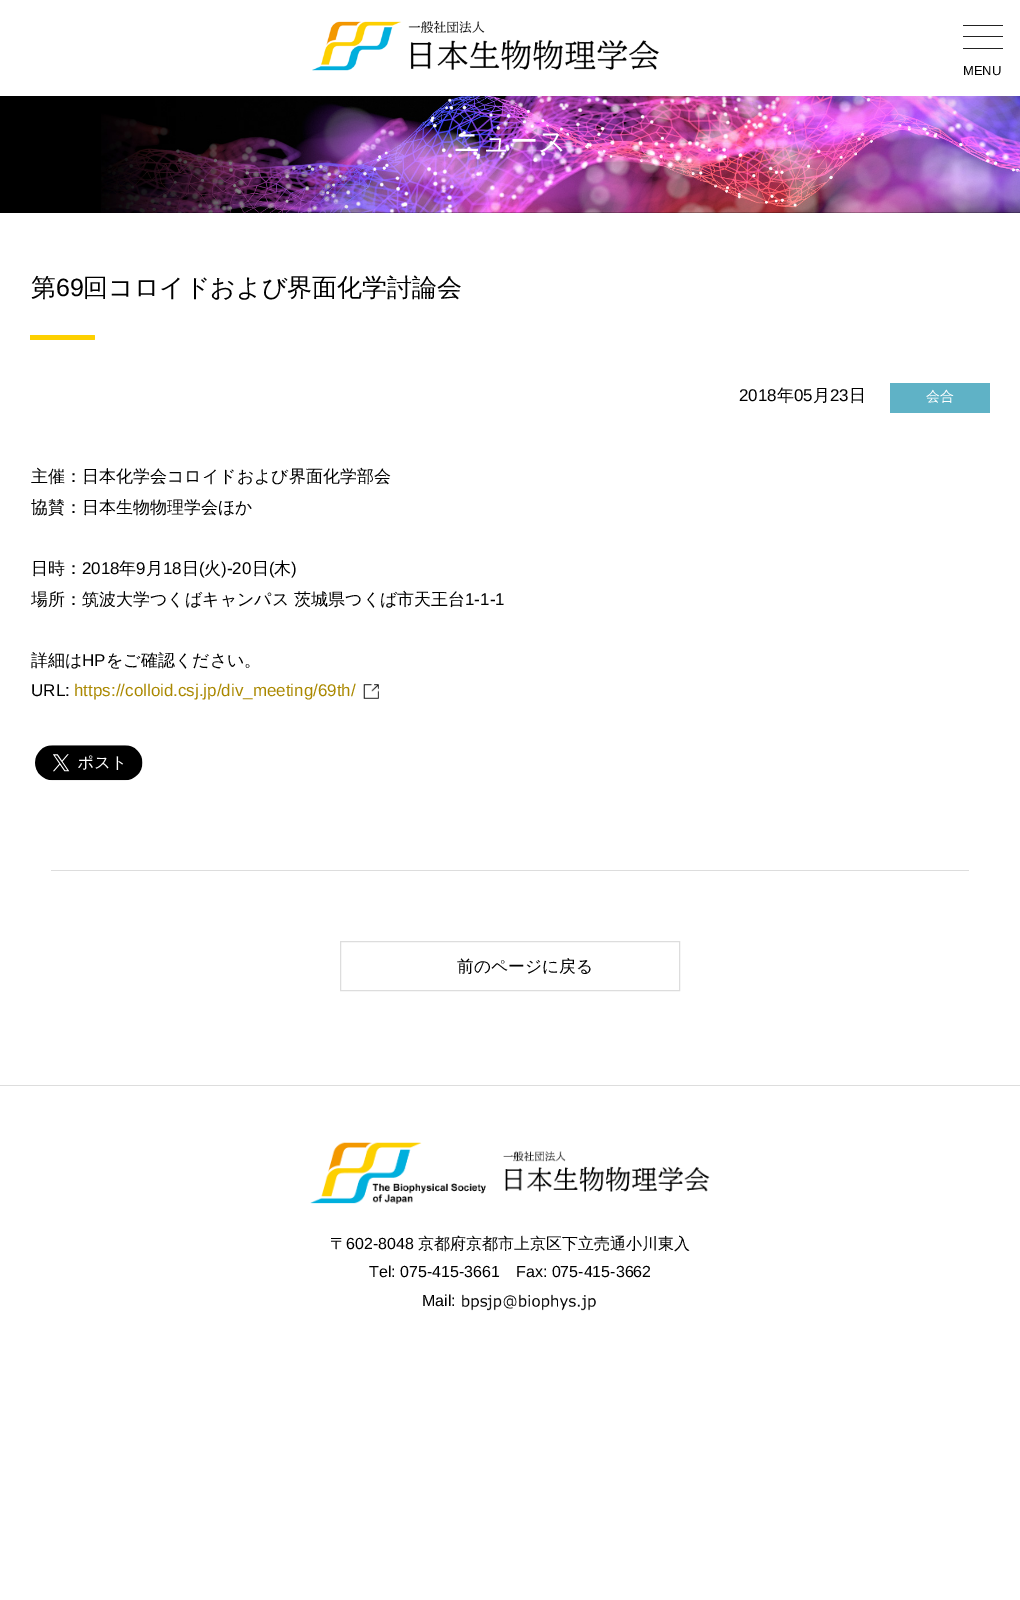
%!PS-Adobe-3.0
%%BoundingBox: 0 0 1020 1600
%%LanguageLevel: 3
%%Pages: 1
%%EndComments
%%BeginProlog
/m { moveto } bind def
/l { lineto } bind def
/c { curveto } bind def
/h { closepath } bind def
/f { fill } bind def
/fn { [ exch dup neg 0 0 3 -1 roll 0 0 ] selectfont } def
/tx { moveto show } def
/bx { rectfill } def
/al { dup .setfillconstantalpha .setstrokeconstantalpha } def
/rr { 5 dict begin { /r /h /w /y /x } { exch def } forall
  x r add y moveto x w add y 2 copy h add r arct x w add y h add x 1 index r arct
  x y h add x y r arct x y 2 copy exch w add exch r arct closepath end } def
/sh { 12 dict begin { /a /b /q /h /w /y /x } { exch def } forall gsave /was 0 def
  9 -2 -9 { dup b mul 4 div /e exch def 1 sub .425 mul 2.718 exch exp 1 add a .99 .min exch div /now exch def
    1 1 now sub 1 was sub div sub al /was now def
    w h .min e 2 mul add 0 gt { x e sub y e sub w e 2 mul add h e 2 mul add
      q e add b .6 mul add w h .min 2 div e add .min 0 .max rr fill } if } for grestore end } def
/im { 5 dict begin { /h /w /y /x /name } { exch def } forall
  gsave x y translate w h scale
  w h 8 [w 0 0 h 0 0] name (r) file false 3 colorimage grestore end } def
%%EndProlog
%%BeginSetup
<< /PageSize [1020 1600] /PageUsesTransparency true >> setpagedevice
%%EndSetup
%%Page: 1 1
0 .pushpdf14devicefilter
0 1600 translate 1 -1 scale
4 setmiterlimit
1 setgray
0 0 1020 1600 bx
0 setgray
0 96 1020 117 bx
(image1.raw) 101 96 919 117 im
9 18 1002 78 0 15.5 0.1 sh
1 setgray
0 0 1020 96 bx
0.133 setgray
963 36 40 1 bx
963 25 40 1 bx
963 48 40 1 bx
/LiberationSans-Regular 13 fn
0 setgray
(MENU) 963 75 tx
(image0.raw) 312 21 348 50 im
/WenQuanYiZenHei-Medium 28 fn
1 setgray
(ニュース) 453 151 tx
/WenQuanYiZenHei-Medium 25 fn
0 setgray
(第) 31 296 tx
/LiberationSans-Regular 25 fn
(69) 56 296 tx
/WenQuanYiZenHei-Medium 25 fn
(回コロイドおよび界面化学討論会) 83 296 tx
0.992 0.816 0 setrgbcolor
30 335 m 94 335 l 94.5 335 95 335.5 95 336 c 95 339 l 95 339.5 94.5 340 94 340 c 30 340 l h f
/LiberationSans-Regular 17 fn
0 setgray
(2018) 739 401 tx
/WenQuanYiZenHei-Medium 17 fn
(年) 777 401 tx
/LiberationSans-Regular 17 fn
(05) 794 401 tx
/WenQuanYiZenHei-Medium 17 fn
(月) 813 401 tx
/LiberationSans-Regular 17 fn
(23) 830 401 tx
/WenQuanYiZenHei-Medium 17 fn
(日) 849 401 tx
0.373 0.698 0.776 setrgbcolor
890 383 100 30 bx
/WenQuanYiZenHei-Medium 14 fn
1 setgray
(会合) 926 401 tx
/WenQuanYiZenHei-Medium 17 fn
0 setgray
(主催：日本化学会コロイドおよび界面化学部会) 31 482 tx
(協賛：日本生物物理学会ほか) 31 513 tx
(日時：) 31 574 tx
/LiberationSans-Regular 17 fn
(2018) 82 574 tx
/WenQuanYiZenHei-Medium 17 fn
(年) 119 574 tx
/LiberationSans-Regular 17 fn
(9) 136 574 tx
/WenQuanYiZenHei-Medium 17 fn
(月) 146 574 tx
/LiberationSans-Regular 17 fn
(18) 163 574 tx
/WenQuanYiZenHei-Medium 17 fn
(日) 182 574 tx
/LiberationSans-Regular 17 fn
(\() 199 574 tx
/WenQuanYiZenHei-Medium 17 fn
(火) 204 574 tx
/LiberationSans-Regular 17 fn
(\)-20) 221 574 tx
/WenQuanYiZenHei-Medium 17 fn
(日) 252 574 tx
/LiberationSans-Regular 17 fn
(\() 269 574 tx
/WenQuanYiZenHei-Medium 17 fn
(木) 274 574 tx
/LiberationSans-Regular 17 fn
(\)) 291 574 tx
/WenQuanYiZenHei-Medium 17 fn
(場所：筑波大学つくばキャンパス 茨城県つくば市天王台) 31 605 tx
/LiberationSans-Regular 17 fn
(1-1-1) 465 605 tx
/WenQuanYiZenHei-Medium 17 fn
(詳細は) 31 666 tx
/LiberationSans-Regular 17 fn
(HP) 82 666 tx
/WenQuanYiZenHei-Medium 17 fn
(をご確認ください。) 106 666 tx
/LiberationSans-Regular 17 fn
(URL:) 31 696 tx
0.667 0.533 0 setrgbcolor
(https://colloid.csj.jp/div_meeting/69th/) 74 696 tx
(image2.raw) 363 684 16 15 im
(image3.raw) 35 745 108 36 im
0.867 setgray
51 870 918 1 bx
340.5 941.5 339 49 rectstroke
/WenQuanYiZenHei-Medium 16.75 fn
0 setgray
(前のページに戻る) 457 972 tx
0.867 setgray
0 1085 1020 1 bx
(image4.raw) 310 1142 400 62 im
/WenQuanYiZenHei-Medium 16 fn
0 setgray
(〒) 330 1249 tx
/LiberationSans-Regular 16 fn
(602-8048) 346 1249 tx
/WenQuanYiZenHei-Medium 16 fn
(京都府京都市上京区下立売通小川東入) 418 1249 tx
/LiberationSans-Regular 16 fn
(Tel: 075-415-3661) 369 1277 tx
(Fax: 075-415-3662) 516 1277 tx
(Mail:) 422 1306 tx
(image5.raw) 462 1294 134 17 im
.poppdf14devicefilter showpage
%%EOF
